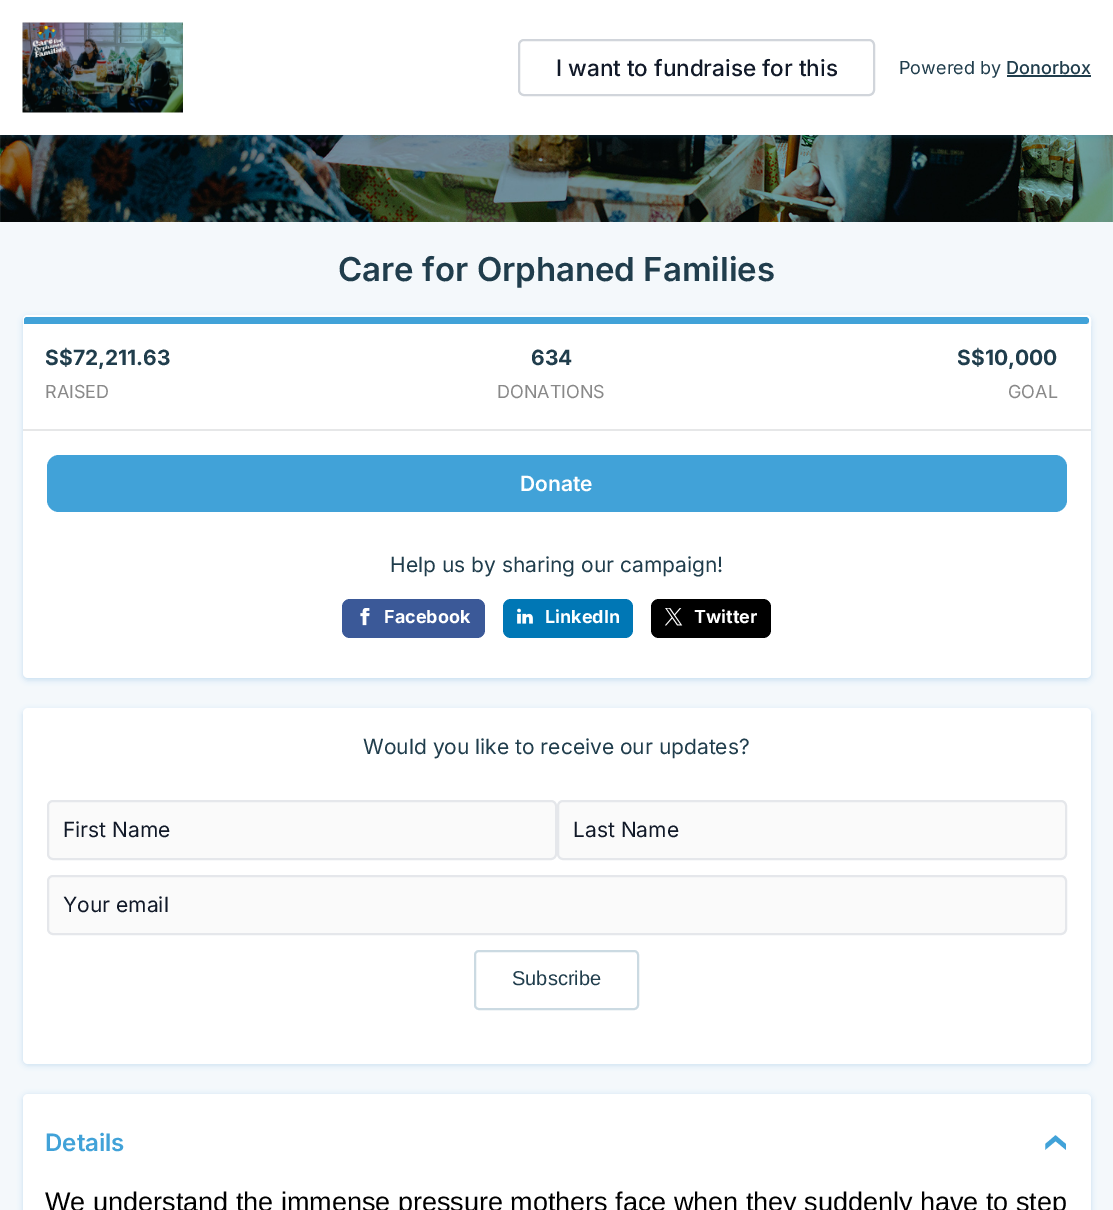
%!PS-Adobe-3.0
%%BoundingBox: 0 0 1113 1210
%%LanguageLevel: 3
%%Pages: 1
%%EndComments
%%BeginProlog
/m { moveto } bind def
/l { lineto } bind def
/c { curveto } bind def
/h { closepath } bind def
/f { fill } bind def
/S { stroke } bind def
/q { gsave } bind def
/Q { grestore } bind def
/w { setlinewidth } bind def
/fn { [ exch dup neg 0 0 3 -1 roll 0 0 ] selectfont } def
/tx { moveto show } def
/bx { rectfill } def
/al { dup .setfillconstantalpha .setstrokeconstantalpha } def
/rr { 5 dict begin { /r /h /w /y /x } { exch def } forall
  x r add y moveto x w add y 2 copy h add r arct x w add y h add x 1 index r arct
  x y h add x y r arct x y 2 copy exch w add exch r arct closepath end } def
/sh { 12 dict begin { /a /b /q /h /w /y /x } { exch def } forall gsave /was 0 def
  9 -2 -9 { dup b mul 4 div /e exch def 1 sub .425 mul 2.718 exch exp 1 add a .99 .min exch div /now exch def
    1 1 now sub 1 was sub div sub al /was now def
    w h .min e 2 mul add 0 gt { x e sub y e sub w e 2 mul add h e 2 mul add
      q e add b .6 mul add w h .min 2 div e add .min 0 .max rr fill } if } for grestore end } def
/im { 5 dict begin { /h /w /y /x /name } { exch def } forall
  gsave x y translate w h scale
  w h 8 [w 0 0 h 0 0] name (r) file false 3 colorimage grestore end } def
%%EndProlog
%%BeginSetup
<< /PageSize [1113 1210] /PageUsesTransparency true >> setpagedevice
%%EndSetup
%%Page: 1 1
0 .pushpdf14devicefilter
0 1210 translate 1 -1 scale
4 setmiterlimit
0.957 0.973 0.984 setrgbcolor
0 0 1113 1210 bx
(image1.raw) 0 135 1113 87 im
0.075 0.494 0.78 setrgbcolor
0 2 1113 135 0 3 0.2 sh
1 setgray
0 0 1113 135 bx
(image0.raw) 22 22 161 91 im
0.82 0.835 0.859 setrgbcolor
2 w
519 40 355 55 5 rr S
/Inter-Medium 22.5 fn
0.067 0.098 0.157 setrgbcolor
(I want to fundraise for this) 556 76 tx
/Inter-Regular 18 fn
0.125 0.239 0.298 setrgbcolor
(Powered by) 899 74 tx
/Inter-Medium 18 fn
(Donorbox) 1006 74 tx
1007 75 84 2 bx
/Inter-SemiBold 33 fn
(Care for Orphaned Families) 338 281 tx
0.075 0.494 0.78 setrgbcolor
23 317 1068 363 5 3 0.2 sh
1 setgray
23 315 1068 363 5 rr f
0.898 setgray
28 316 m 1086 316 l 1088 316 1090 318 1090 320 c 1090 325 l 24 325 l 24 320 l 24 318 26 316 28 316 c h q f Q
1 setgray
S
q
27 317 m 1086 317 l 1087.5 317 1089 318.5 1089 320 c 1089 324 l 24 324 l 24 320 l 24 318.5 25.5 317 27 317 c h clip newpath
0.255 0.635 0.847 setrgbcolor
27 317 m 1085.5 317 l 1087.5 317 1089 318.5 1089 320.5 c 1089 322.5 1087.5 324 1085.5 324 c 24 324 l 24 320 l 24 318.5 25.5 317 27 317 c h f
Q
0.902 0.906 0.91 setrgbcolor
23 429 1068 2 bx
/Inter-Bold 21 fn
0.125 0.239 0.298 setrgbcolor
(S$72,211.63) 45 365 tx
/Inter-Regular 18 fn
0.537 setgray
(RAISED) 45 398 tx
/Inter-Bold 21 fn
0.125 0.239 0.298 setrgbcolor
(634) 531 365 tx
/Inter-Regular 18 fn
0.537 setgray
(DONATIONS) 497 398 tx
/Inter-Bold 21 fn
0.125 0.239 0.298 setrgbcolor
(S$10,000) 957 365 tx
/Inter-Regular 18 fn
0.537 setgray
(GOAL) 1008 398 tx
0.255 0.635 0.847 setrgbcolor
47 455 1020 57 12 rr f
/Inter-SemiBold 21 fn
1 setgray
(Donate) 520 491 tx
/Inter-Regular 21 fn
0.125 0.239 0.298 setrgbcolor
(Help us by sharing our campaign!) 390 572 tx
0.231 0.349 0.596 setrgbcolor
342 599 143 39 8 rr f
(image2.raw) 360 608 10 18 im
/Inter-Bold 18 fn
1 setgray
(Facebook) 384 623 tx
0 0.467 0.71 setrgbcolor
503 599 130 39 8 rr f
(image3.raw) 517 608 16 16 im
1 setgray
(LinkedIn) 545 623 tx
0 setgray
651 599 120 39 8 rr f
(image4.raw) 665 608 18 18 im
1 setgray
(Twitter) 694 623 tx
0.075 0.494 0.78 setrgbcolor
23 710 1068 355 5 3 0.2 sh
1 setgray
23 708 1068 356 5 rr f
/Inter-Regular 21 fn
0.125 0.239 0.298 setrgbcolor
(Would you like to receive our updates?) 363 754 tx
0.98 setgray
48 801 508 58 5 rr q f Q
0.898 0.906 0.922 setrgbcolor
S
0.067 0.098 0.157 setrgbcolor
(First Name) 63 837 tx
0.98 setgray
558 801 508 58 5 rr q f Q
0.898 0.906 0.922 setrgbcolor
S
0.067 0.098 0.157 setrgbcolor
(Last Name) 573 837 tx
0.98 setgray
48 876 1018 58 5 rr q f Q
0.898 0.906 0.922 setrgbcolor
S
0.067 0.098 0.157 setrgbcolor
(Your email) 63 912 tx
0.796 0.855 0.886 setrgbcolor
475 951 163 58 4 rr S
/LiberationSans-Regular 20 fn
0.125 0.239 0.298 setrgbcolor
(Subscribe) 512 985 tx
0.075 0.494 0.78 setrgbcolor
23 1095 1068 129 5 3 0.2 sh
1 setgray
23 1094 1068 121 5 rr f
/Inter-SemiBold 24 fn
0.255 0.635 0.847 setrgbcolor
(Details) 45 1151 tx
/Inter-SemiBold 45 fn
q 1042 1133 translate 90 rotate 0 0 m (‹) show Q
/LiberationSans-Regular 27 fn
0 setgray
(We understand the immense pressure mothers face when they suddenly have to step) 45 1211 tx
.poppdf14devicefilter showpage
%%EOF
